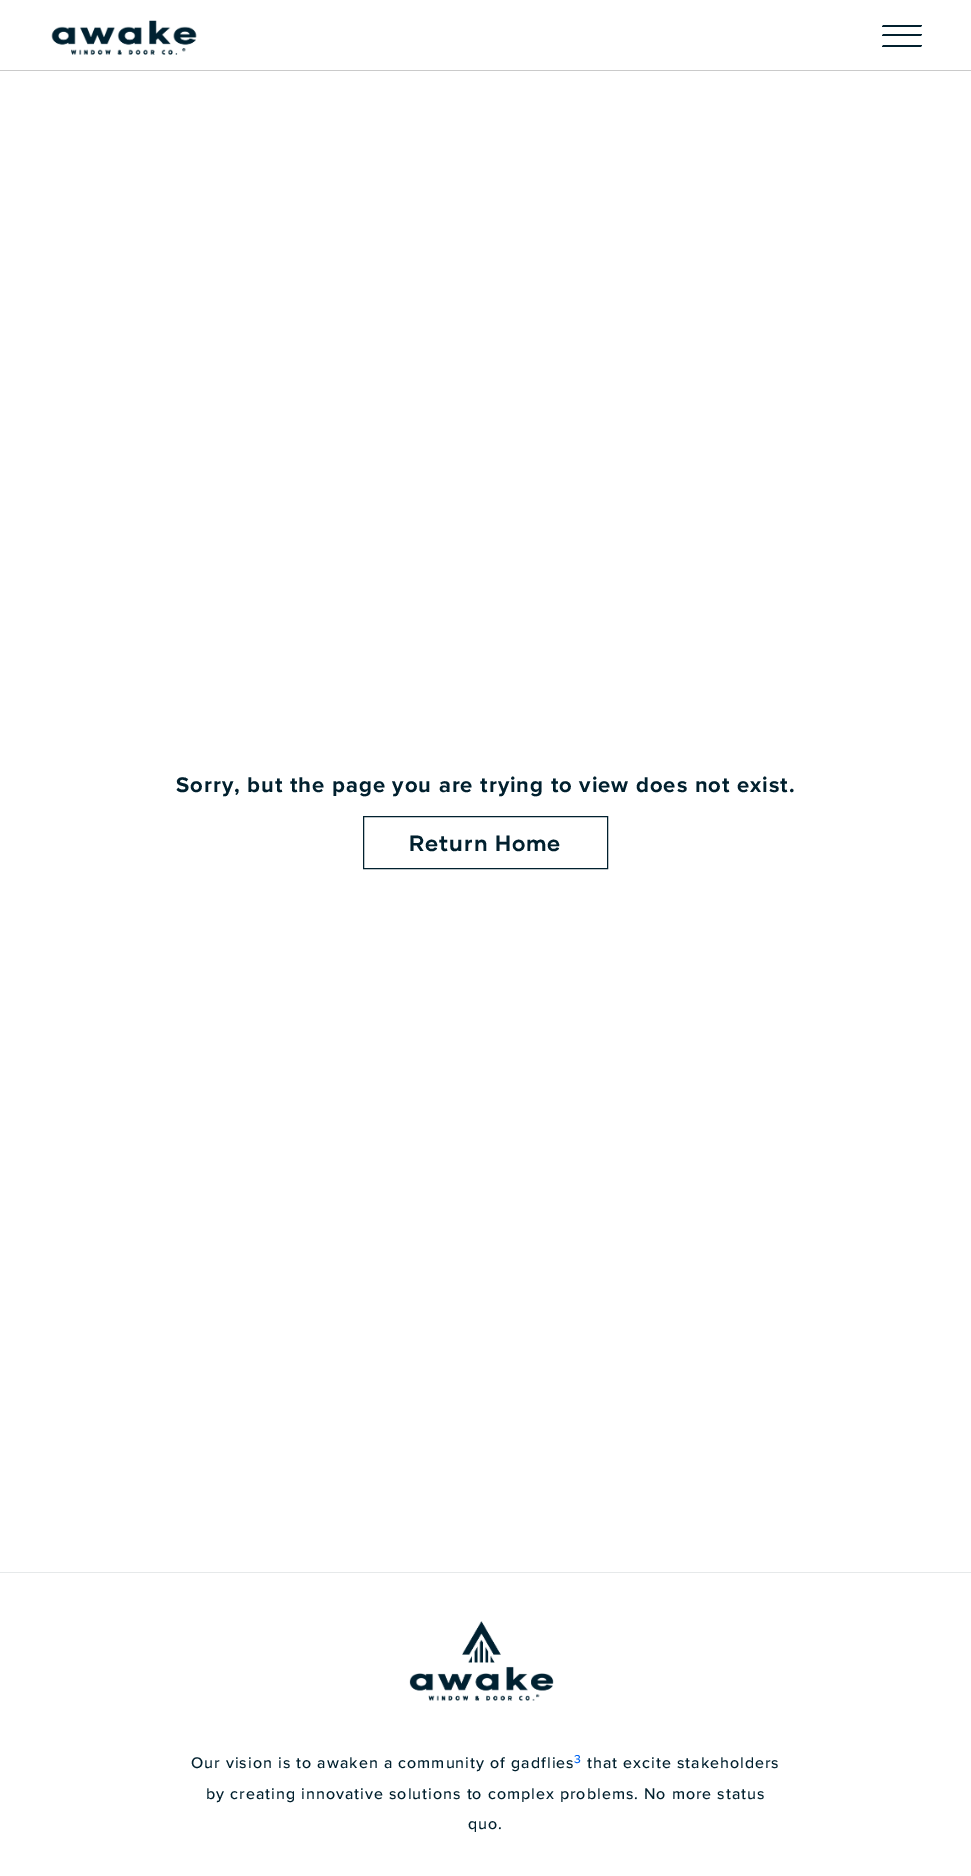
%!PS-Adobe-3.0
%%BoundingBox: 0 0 971 1876
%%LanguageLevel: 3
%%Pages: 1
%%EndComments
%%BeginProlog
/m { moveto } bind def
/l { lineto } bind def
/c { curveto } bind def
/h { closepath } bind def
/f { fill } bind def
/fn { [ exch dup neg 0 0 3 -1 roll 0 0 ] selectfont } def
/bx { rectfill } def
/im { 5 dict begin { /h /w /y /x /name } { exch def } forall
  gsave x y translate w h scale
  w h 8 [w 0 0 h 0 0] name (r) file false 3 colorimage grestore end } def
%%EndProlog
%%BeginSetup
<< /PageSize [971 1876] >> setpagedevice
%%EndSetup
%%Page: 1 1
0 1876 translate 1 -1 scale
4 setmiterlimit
1 setgray
0 0 971 1876 bx
0.792 setgray
0 70 971 1 bx
(image0.raw) 51 20 146 35 im
0.004 0.125 0.18 setrgbcolor
884 25 m 922 25 l 922 26 921 27 920 27 c 882 27 l 882 26 883 25 884 25 c h f
884 34 m 922 34 l 922 35 921 36 920 36 c 882 36 l 882 35 883 34 884 34 c h f
884 45 m 922 45 l 922 46 921 47 920 47 c 882 47 l 882 46 883 45 884 45 c h f
/ProximaNova-Bold 22 fn
176 792 m 1 0 (Sorry, but the page you are trying to view does not exist.) ashow
363.5 816.5 244 52 rectstroke
/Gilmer-Bold 22 fn
409 851 m 1 0 (Return Home) ashow
0.902 0.914 0.918 setrgbcolor
0 1572 971 1 bx
(image1.raw) 409 1621 145 80 im
/ProximaNova-Medium 16 fn
0.004 0.125 0.18 setrgbcolor
191 1768 m 1 0 (Our vision is to awaken a community of gadflies) ashow
/ProximaNova-Medium 12 fn
0 0.396 0.949 setrgbcolor
574 1763 m 1 0 (3) ashow
/ProximaNova-Medium 16 fn
0.004 0.125 0.18 setrgbcolor
587 1768 m 1 0 (that excite stakeholders) ashow
206 1799 m 1 0 (by creating innovative solutions to complex problems. No more status) ashow
468 1829 m 1 0 (quo.) ashow
showpage
%%EOF
